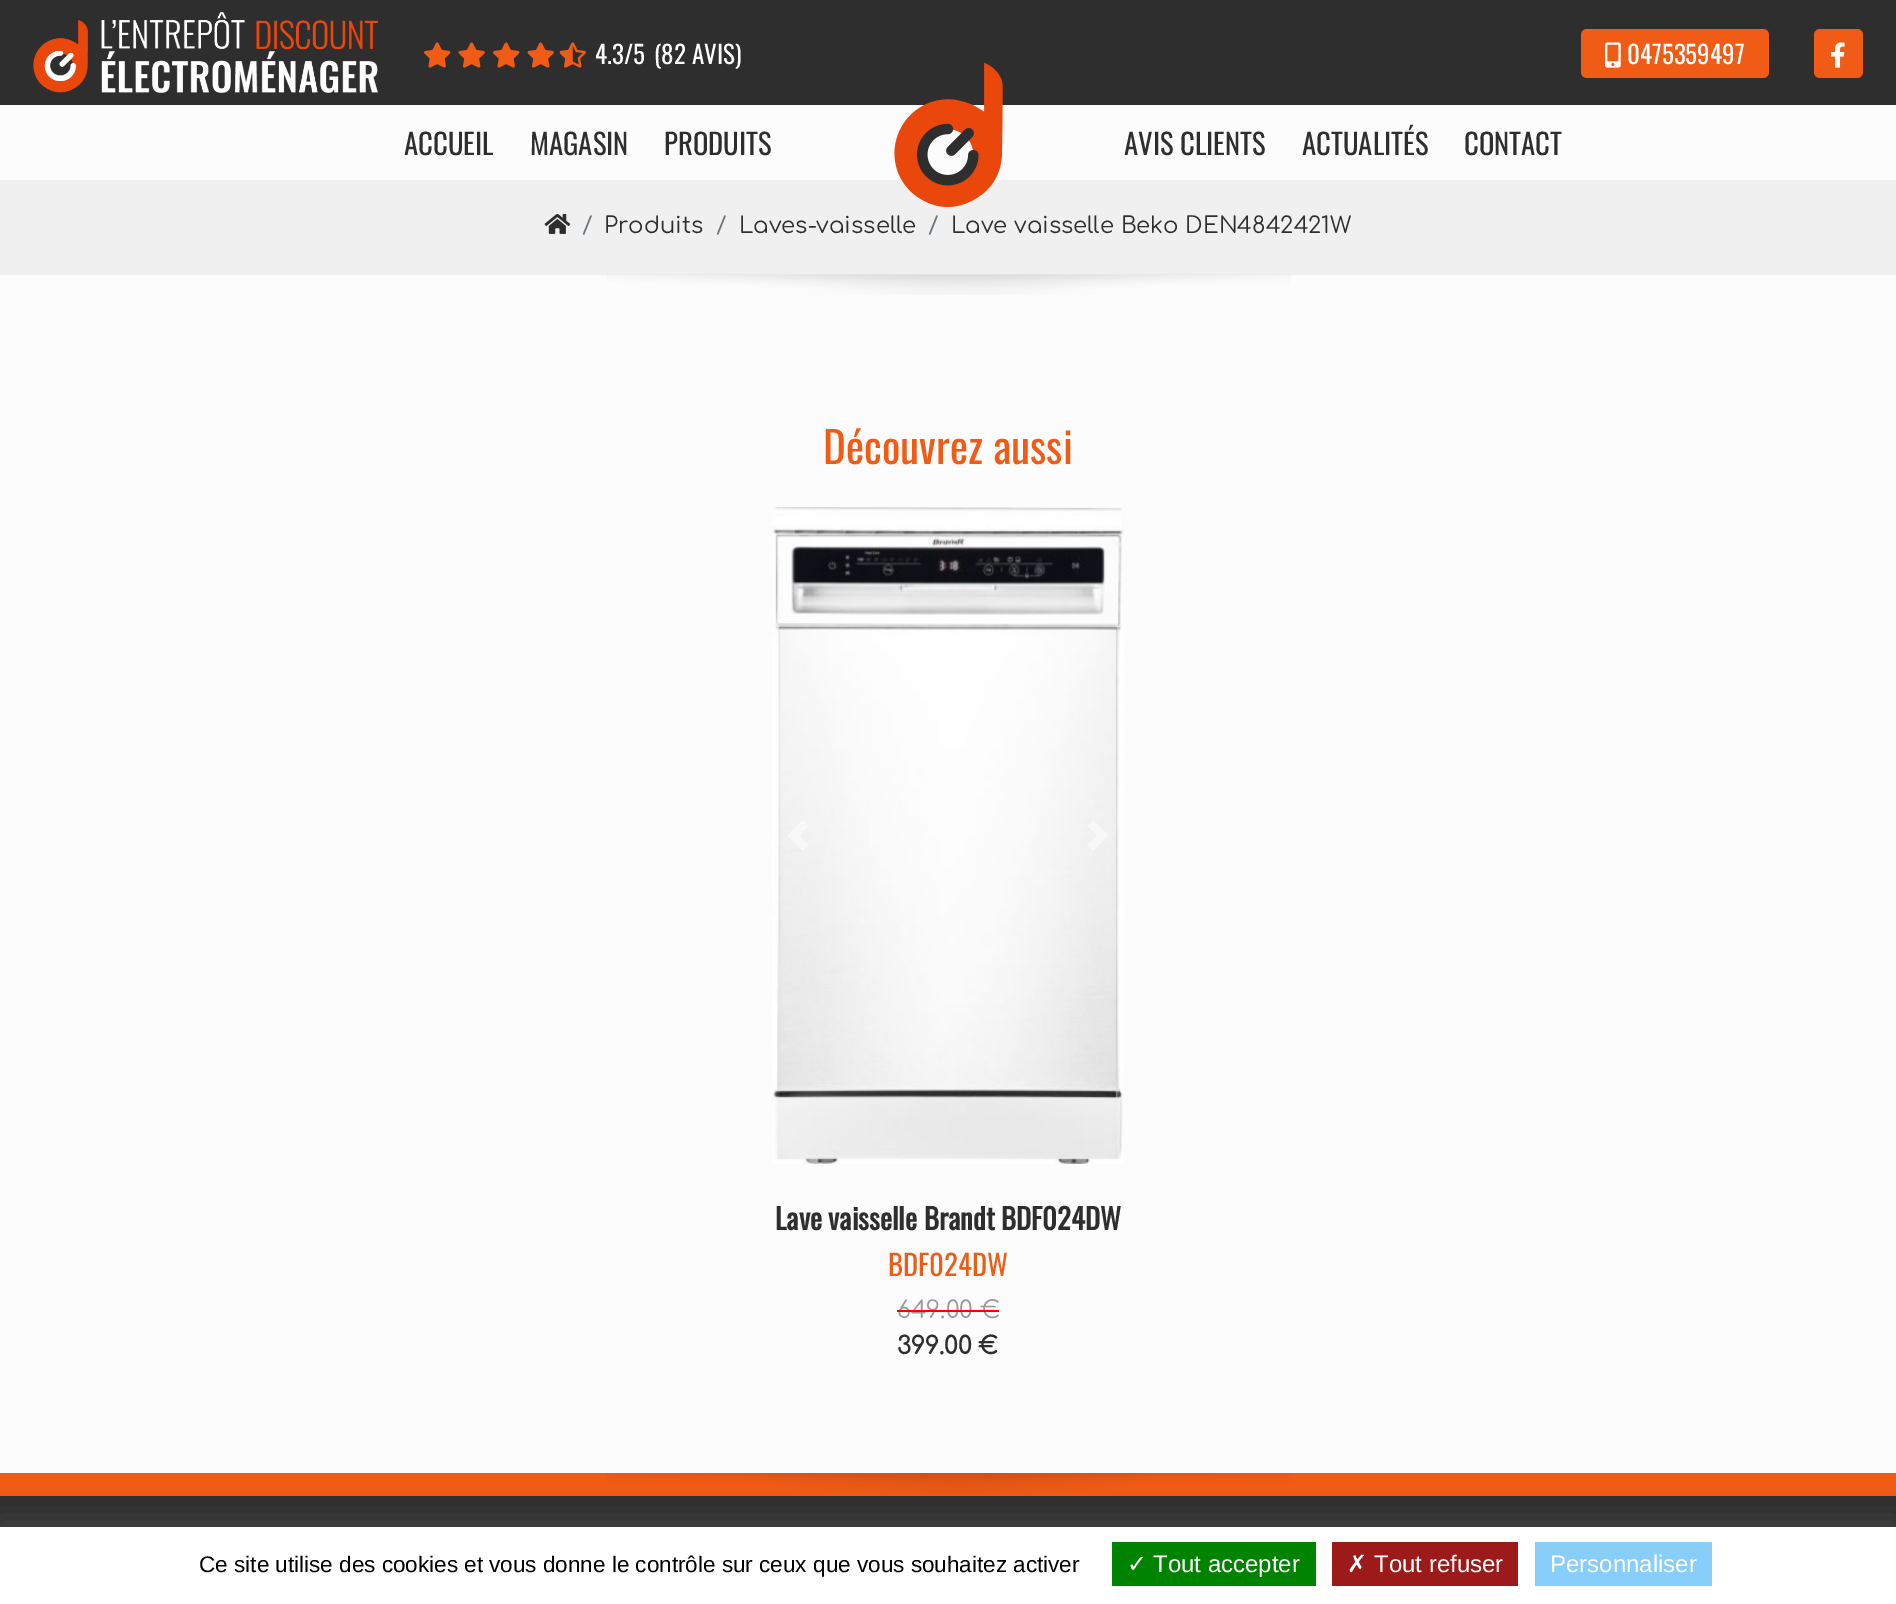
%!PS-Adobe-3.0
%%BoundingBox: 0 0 1896 1604
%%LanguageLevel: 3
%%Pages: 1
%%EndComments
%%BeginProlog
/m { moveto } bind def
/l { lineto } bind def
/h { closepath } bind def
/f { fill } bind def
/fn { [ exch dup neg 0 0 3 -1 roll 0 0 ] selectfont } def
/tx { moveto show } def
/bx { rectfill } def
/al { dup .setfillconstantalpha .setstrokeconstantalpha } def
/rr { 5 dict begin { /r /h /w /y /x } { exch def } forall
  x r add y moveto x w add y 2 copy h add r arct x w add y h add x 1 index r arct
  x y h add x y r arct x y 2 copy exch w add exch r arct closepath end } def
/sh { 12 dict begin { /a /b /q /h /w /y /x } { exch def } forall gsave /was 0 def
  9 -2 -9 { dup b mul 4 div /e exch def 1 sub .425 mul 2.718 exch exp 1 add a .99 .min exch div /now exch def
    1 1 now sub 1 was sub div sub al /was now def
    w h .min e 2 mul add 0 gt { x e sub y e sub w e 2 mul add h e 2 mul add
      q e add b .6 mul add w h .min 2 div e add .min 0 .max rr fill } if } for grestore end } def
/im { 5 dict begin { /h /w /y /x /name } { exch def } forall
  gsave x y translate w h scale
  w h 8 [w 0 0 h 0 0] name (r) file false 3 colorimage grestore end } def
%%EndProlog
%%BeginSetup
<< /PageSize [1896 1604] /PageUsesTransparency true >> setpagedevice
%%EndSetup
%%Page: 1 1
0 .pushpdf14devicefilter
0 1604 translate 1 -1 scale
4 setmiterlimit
0.988 setgray
0 0 1896 1604 bx
0.18 setgray
0 0 1896 105 bx
(image0.raw) 33 12 345 81 im
(image1.raw) 424 42 27 26 im
(image2.raw) 458 42 27 26 im
(image1.raw) 493 42 27 26 im
(image2.raw) 527 42 27 26 im
(image3.raw) 559 42 27 26 im
/Oswald-Regular 25 fn
1 setgray
(4.3/5) 595 64 tx
(\(82 AVIS\)) 654 64 tx
0.941 0.357 0.086 setrgbcolor
1581 29 188 49 6 rr f
(image4.raw) 1605 42 16 26 im
1 setgray
(0475359497) 1627 64 tx
0.941 0.357 0.086 setrgbcolor
1814 29 49 49 6 rr f
(image5.raw) 1831 42 14 26 im
/Oswald-Regular 28.75 fn
0.18 setgray
(ACCUEIL) 404 155 tx
(MAGASIN) 530 155 tx
(PRODUITS) 664 155 tx
0.941 setgray
0 180 1896 95 bx
(image6.raw) 894 62 109 146 im
0.18 setgray
(AVIS CLIENTS) 1124 155 tx
(ACTUALITÉS) 1302 155 tx
(CONTACT) 1464 155 tx
(image7.raw) 544 214 27 20 im
/Comfortaa-Regular 22.75 fn
0.424 0.459 0.49 setrgbcolor
(/) 582 233 tx
0.18 setgray
(Produits) 604 233 tx
0.424 0.459 0.49 setrgbcolor
(/) 716 233 tx
0.18 setgray
(Laves-vaisselle) 739 233 tx
0.424 0.459 0.49 setrgbcolor
(/) 928 233 tx
0.18 setgray
(Lave vaisselle Beko DEN4842421W) 951 233 tx
(image8.raw) 607 274 683 21 im
/Oswald-Regular 43.25 fn
0.941 0.357 0.086 setrgbcolor
(Découvrez aussi) 823 464 tx
(image9.raw) 772 507 352 657 im
0.5 al
1 setgray
802.5 820.5 m 787.5 835.5 l 802.5 850.5 l 808.5 845 l 799 835.5 l 808.5 826 l h f
1093.5 820.5 m 1087.5 826 l 1097 835.5 l 1087.5 845 l 1093.5 850.5 l 1108.5 835.5 l h f
/Oswald-Bold 28.75 fn
1 al
0.18 setgray
(Lave vaisselle Brandt BDF024DW) 775 1230 tx
/Oswald-Regular 28.75 fn
0.941 0.357 0.086 setrgbcolor
(BDF024DW) 888 1276 tx
/Comfortaa-Regular 24 fn
0.6 setgray
(649.00 €) 897 1318 tx
1 0 0 setrgbcolor
897 1310 102 2 bx
/Comfortaa-Bold 24 fn
0.18 setgray
(399.00 €) 897 1354 tx
0.941 0.357 0.086 setrgbcolor
0 1473 1896 23 bx
(image10.raw) 605 1473 687 21 im
0.18 setgray
0 1496 1896 31 bx
0.502 setgray
0 1524 1896 78 0 15 0.3 sh
1 setgray
0 1527 1896 77 bx
/LiberationSans-Regular 22.5 fn
0 setgray
(Ce site utilise des cookies et vous donne le contrôle sur ceux que vous souhaitez activer) 199 1572 tx
0 0.514 0 setrgbcolor
1112 1542 204 44 bx
/DejaVuSans-Regular 24 fn
1 setgray
(✓) 1127 1572 tx
/LiberationSans-Regular 24 fn
(Tout accepter) 1153 1572 tx
0.612 0.102 0.102 setrgbcolor
1332 1542 186 44 bx
/DejaVuSans-Regular 24 fn
1 setgray
(✗) 1347 1572 tx
/LiberationSans-Regular 24 fn
(Tout refuser) 1374 1572 tx
0.529 0.808 0.98 setrgbcolor
1535 1542 177 44 bx
1 setgray
(Personnaliser) 1550 1572 tx
.poppdf14devicefilter showpage
%%EOF
